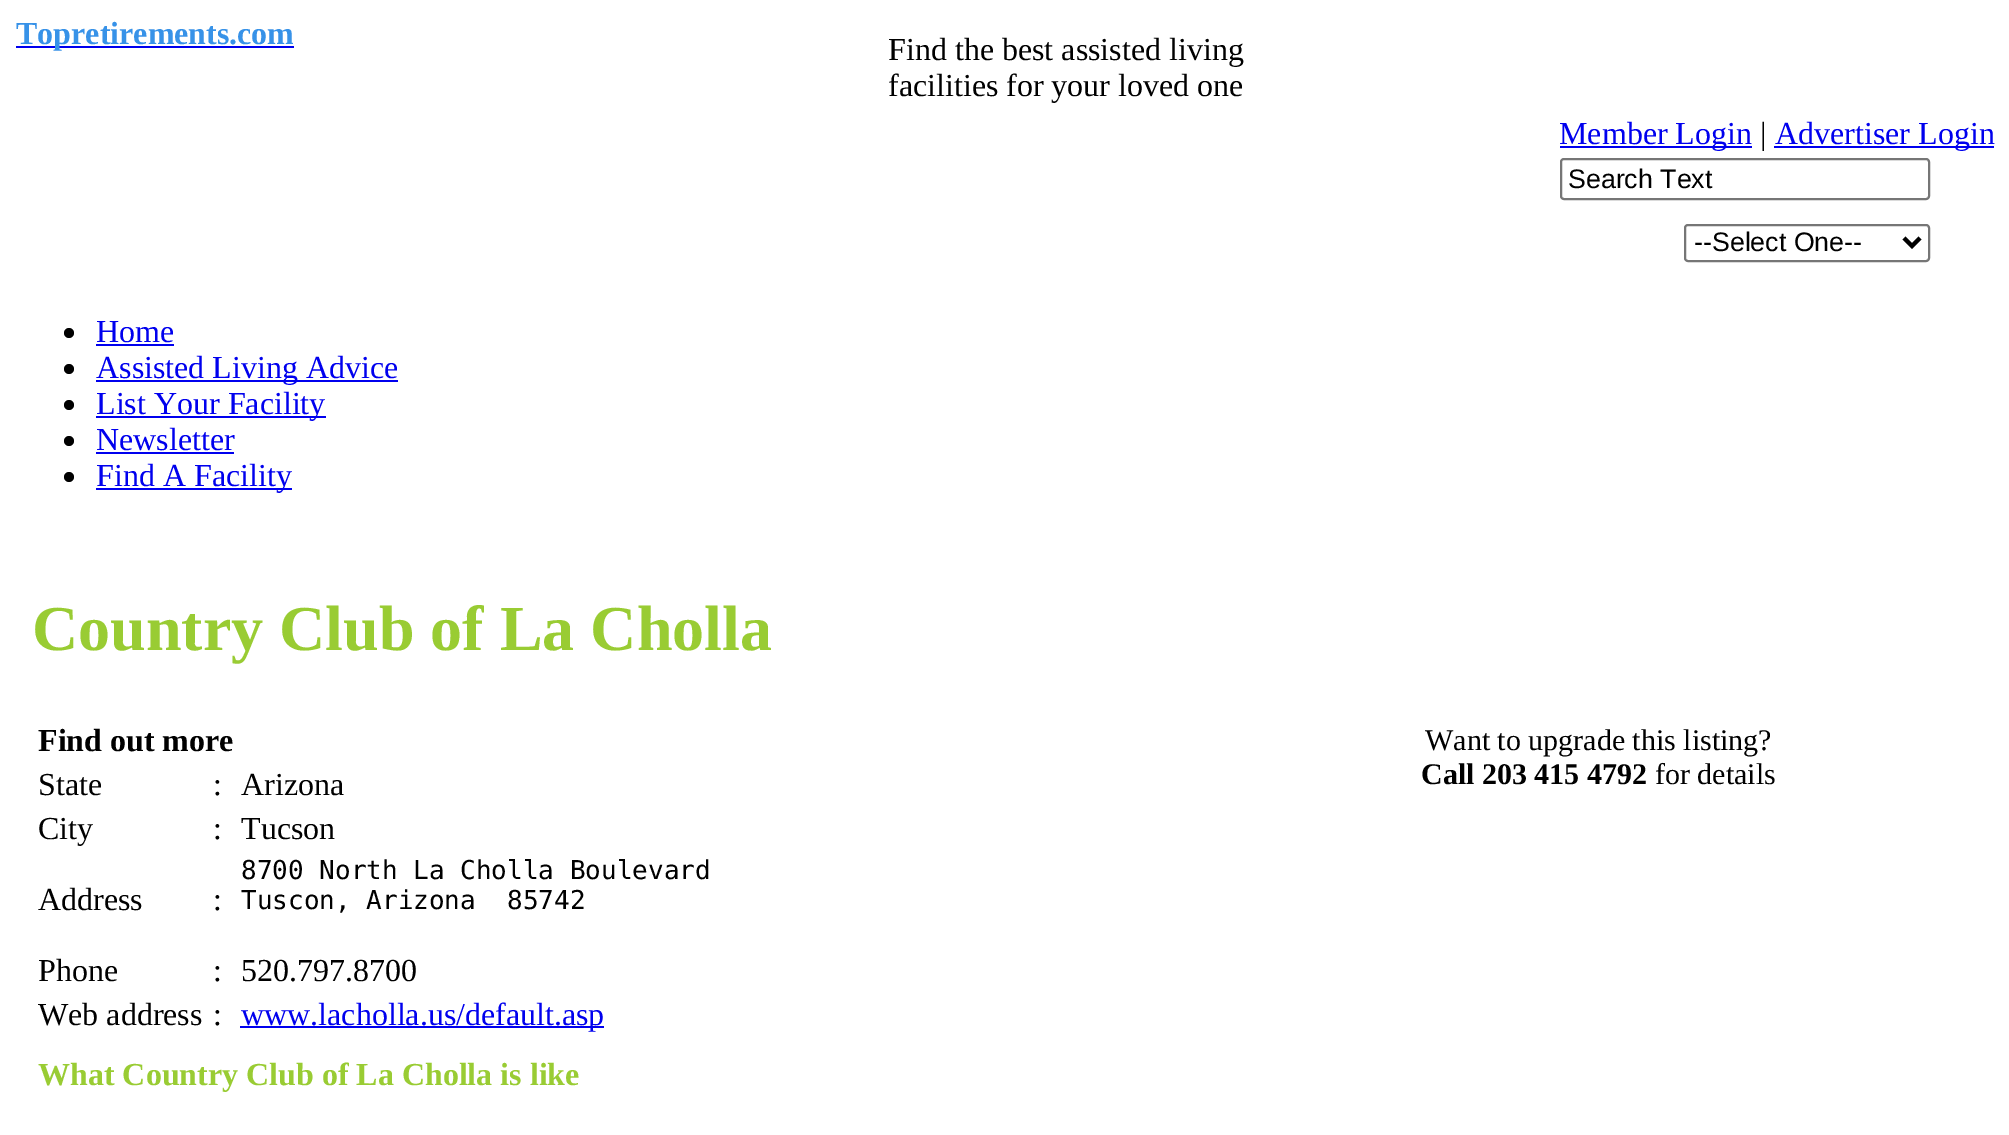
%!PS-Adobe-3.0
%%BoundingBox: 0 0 2009 1135
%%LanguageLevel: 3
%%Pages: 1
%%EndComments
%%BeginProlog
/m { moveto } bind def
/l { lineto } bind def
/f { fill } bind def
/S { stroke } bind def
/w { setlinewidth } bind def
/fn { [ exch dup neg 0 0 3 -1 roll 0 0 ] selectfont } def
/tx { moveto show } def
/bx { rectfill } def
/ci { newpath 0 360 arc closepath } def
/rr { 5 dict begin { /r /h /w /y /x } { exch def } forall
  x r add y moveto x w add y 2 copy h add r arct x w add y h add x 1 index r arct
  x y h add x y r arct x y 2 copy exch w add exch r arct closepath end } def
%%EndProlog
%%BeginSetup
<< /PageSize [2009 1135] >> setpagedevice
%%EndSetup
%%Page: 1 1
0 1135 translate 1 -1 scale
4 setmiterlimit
1 setgray
0 0 2009 1135 bx
0 0 0.933 setrgbcolor
16 46 278 2 bx
/LiberationSerif-Bold 32 fn
0.216 0.573 0.91 setrgbcolor
(Topretirements.com) 16 44 tx
/LiberationSerif-Regular 32 fn
0 setgray
(Find the best assisted living) 888 60 tx
(facilities for your loved one) 888 96 tx
0 0 0.933 setrgbcolor
1560 146 192 2 bx
(Member Login) 1559 144 tx
0 setgray
(|) 1760 144 tx
0 0 0.933 setrgbcolor
1774 146 220 2 bx
(Advertiser Login) 1775 144 tx
0.463 setgray
2 w
1561 159 368 40 3 rr S
/LiberationSans-Regular 26.75 fn
0 setgray
(Search Text) 1568 188 tx
0.463 setgray
1685 225 244 36 3 rr S
0 setgray
4 w
1904 238 m 1912 246 l 1920 238 l S
(--Select One--) 1694 251 tx
69 333 5 ci f
/LiberationSerif-Regular 32 fn
0 0 0.933 setrgbcolor
(Home) 96 342 tx
96 344 78 2 bx
0 setgray
69 369 5 ci f
0 0 0.933 setrgbcolor
96 380 302 2 bx
(Assisted Living Advice) 96 378 tx
0 setgray
69 405 5 ci f
0 0 0.933 setrgbcolor
96 416 230 2 bx
(List Your Facility) 96 414 tx
0 setgray
69 441 5 ci f
0 0 0.933 setrgbcolor
(Newsletter) 96 450 tx
96 452 138 2 bx
0 setgray
69 477 5 ci f
0 0 0.933 setrgbcolor
96 488 196 2 bx
(Find A Facility) 96 486 tx
/LiberationSerif-Bold 64 fn
0.6 0.8 0.2 setrgbcolor
(Country Club of La Cholla) 32 650 tx
/LiberationSerif-Bold 32 fn
0 setgray
(Find out more) 38 751 tx
/LiberationSerif-Regular 32 fn
(State) 38 795 tx
(:) 213 795 tx
(Arizona) 241 795 tx
(City) 38 839 tx
(:) 213 839 tx
(Tucson) 241 839 tx
(Address) 38 910 tx
(:) 213 910 tx
/DejaVuSansMono-Regular 26 fn
(8700 North La Cholla Boulevard) 241 879 tx
(Tuscon, Arizona  85742) 241 909 tx
/LiberationSerif-Regular 32 fn
(Phone) 38 981 tx
(:) 213 981 tx
(520.797.8700) 241 981 tx
(Web address) 38 1025 tx
(:) 213 1025 tx
0 0 0.933 setrgbcolor
240 1026 364 2 bx
(www.lacholla.us/default.asp) 241 1025 tx
/LiberationSerif-Bold 32 fn
0.6 0.8 0.2 setrgbcolor
(What Country Club of La Cholla is like) 38 1085 tx
/LiberationSerif-Regular 30 fn
0 setgray
(Want to upgrade this listing?) 1425 750 tx
/LiberationSerif-Bold 30 fn
(Call 203 415 4792) 1421 784 tx
/LiberationSerif-Regular 30 fn
(for details) 1655 784 tx
showpage
%%EOF
